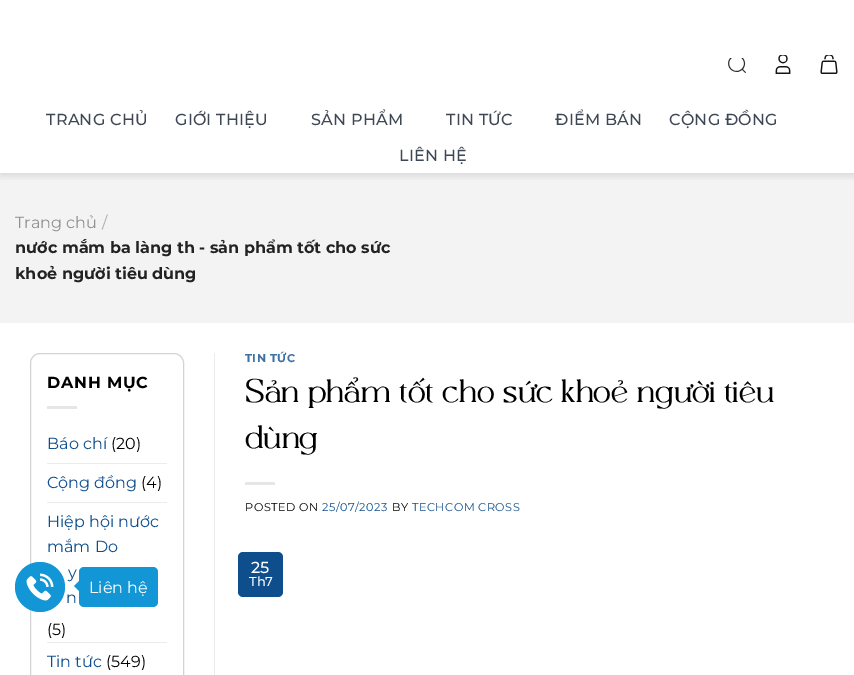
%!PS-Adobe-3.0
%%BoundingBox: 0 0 854 675
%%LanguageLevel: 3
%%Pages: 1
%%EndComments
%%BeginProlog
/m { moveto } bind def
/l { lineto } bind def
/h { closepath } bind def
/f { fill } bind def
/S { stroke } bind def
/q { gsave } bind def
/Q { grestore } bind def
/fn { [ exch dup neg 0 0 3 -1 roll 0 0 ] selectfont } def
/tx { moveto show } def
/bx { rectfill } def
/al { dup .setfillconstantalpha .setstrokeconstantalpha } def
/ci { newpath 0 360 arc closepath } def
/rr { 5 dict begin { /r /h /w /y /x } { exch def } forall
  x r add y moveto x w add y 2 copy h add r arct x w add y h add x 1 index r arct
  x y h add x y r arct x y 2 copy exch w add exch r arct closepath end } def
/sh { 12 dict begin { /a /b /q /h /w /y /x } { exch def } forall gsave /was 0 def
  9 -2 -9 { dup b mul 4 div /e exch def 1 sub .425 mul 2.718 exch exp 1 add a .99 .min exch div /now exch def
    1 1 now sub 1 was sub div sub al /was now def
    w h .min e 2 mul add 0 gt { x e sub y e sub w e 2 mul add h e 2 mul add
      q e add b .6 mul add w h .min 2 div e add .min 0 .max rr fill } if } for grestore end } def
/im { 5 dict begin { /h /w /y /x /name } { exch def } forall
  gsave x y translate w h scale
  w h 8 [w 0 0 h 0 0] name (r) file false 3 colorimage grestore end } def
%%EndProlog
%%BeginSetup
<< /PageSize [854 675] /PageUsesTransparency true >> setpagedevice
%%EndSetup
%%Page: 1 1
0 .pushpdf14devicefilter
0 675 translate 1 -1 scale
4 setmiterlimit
1 setgray
0 0 854 675 bx
0.953 setgray
0 173 854 150 bx
q
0 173 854 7 rectclip
0 setgray
1 1 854 173 0 5 0.15 sh
Q
(image0.raw) 728 58 18 15 im
(image1.raw) 775 55 16 19 im
(image2.raw) 820 55 18 19 im
/Montserrat-Medium 16 fn
0.243 0.278 0.329 setrgbcolor
46 125 m 0.25 0 (TRANG CHỦ) ashow
175 125 m 0.25 0 (GIỚI THIỆU) ashow
311 125 m 0.25 0 (SẢN PHẨM) ashow
446 125 m 0.25 0 (TIN TỨC) ashow
555 125 m 0.25 0 (ĐIỂM BÁN) ashow
669 125 m 0.25 0 (CỘNG ĐỒNG) ashow
399 161 m 0.25 0 (LIÊN HỆ) ashow
/Montserrat-Regular 16 fn
0.565 setgray
(Trang chủ) 15 228 tx
0.667 setgray
(/) 102 228 tx
/Montserrat-Bold 16 fn
0.133 setgray
(nước mắm ba làng th - sản phẩm tốt cho sức) 15 253 tx
(khoẻ người tiêu dùng) 15 279 tx
0.827 setgray
30.5 353.5 153 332 9.5 rr S
0 setgray
47 388 m 0.75 0 (DANH MỤC) ashow
0.902 setgray
47 406 30 3 bx
/Montserrat-Regular 16 fn
0.059 0.306 0.553 setrgbcolor
(Báo chí) 47 449 tx
0 setgray
(\(20\)) 111 449 tx
0.925 setgray
47 463 120 1 bx
0.059 0.306 0.553 setrgbcolor
(Cộng đồng) 47 488 tx
0 setgray
(\(4\)) 141 488 tx
0.925 setgray
47 502 120 1 bx
0.059 0.306 0.553 setrgbcolor
(Hiệp hội nước) 47 527 tx
(mắm Do) 47 552 tx
(y) 68 578 tx
(n) 66 603 tx
0 setgray
(\(5\)) 47 635 tx
0.925 setgray
47 642 120 1 bx
0.059 0.306 0.553 setrgbcolor
(Tin tức) 47 667 tx
0 setgray
(\(549\)) 106 667 tx
0.925 setgray
214 353 1 322 bx
/Montserrat-Bold 11.25 fn
0.247 0.443 0.643 setrgbcolor
245 362 m 0.5 0 (TIN TỨC) ashow
/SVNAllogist-Regular 36 fn
0 setgray
(Sản phẩm tốt cho sức khoẻ người tiêu) 245 402 tx
(dùng) 245 448 tx
0.902 setgray
245 482 30 3 bx
/Montserrat-Regular 11.25 fn
0 setgray
245 511 m 0.5 0 (POSTED ON) ashow
0.059 0.306 0.553 setrgbcolor
322 511 m 0.5 0 (25/07/2023) ashow
0 setgray
392 511 m 0.5 0 (BY) ashow
0.059 0.306 0.553 setrgbcolor
412 511 m 0.5 0 (TECHCOM CROSS) ashow
238 552 45 45 5 rr f
/Montserrat-Medium 16 fn
1 setgray
(25) 251 573 tx
/Montserrat-Medium 13 fn
(Th7) 249 586 tx
0.071 0.588 0.835 setrgbcolor
40 587 25 ci f
(image3.raw) 26 573 28 28 im
79 567 79 40 5 rr f
80 580 m 80 592 l 74 586 l h f
/Montserrat-Regular 16 fn
1 setgray
(Liên hệ) 89 593 tx
.poppdf14devicefilter showpage
%%EOF
